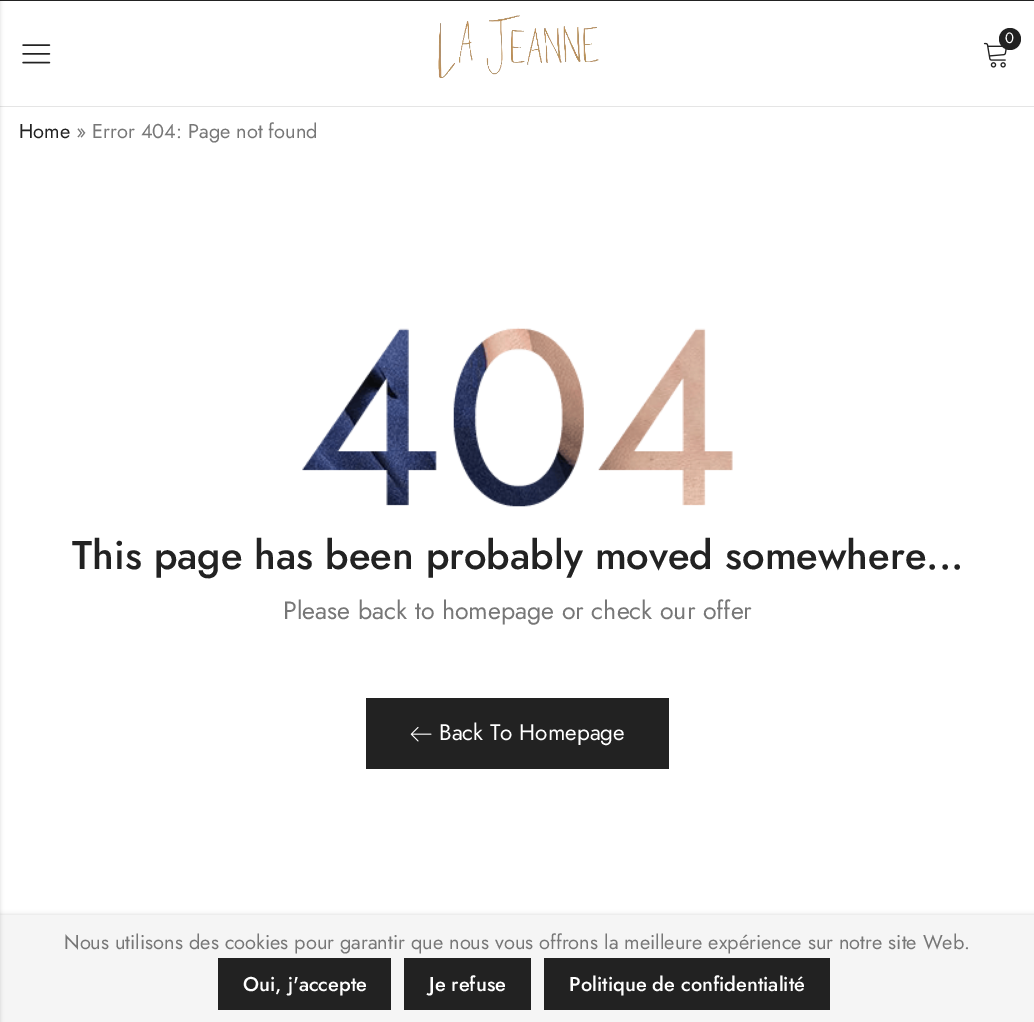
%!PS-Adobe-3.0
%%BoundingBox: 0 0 1034 1022
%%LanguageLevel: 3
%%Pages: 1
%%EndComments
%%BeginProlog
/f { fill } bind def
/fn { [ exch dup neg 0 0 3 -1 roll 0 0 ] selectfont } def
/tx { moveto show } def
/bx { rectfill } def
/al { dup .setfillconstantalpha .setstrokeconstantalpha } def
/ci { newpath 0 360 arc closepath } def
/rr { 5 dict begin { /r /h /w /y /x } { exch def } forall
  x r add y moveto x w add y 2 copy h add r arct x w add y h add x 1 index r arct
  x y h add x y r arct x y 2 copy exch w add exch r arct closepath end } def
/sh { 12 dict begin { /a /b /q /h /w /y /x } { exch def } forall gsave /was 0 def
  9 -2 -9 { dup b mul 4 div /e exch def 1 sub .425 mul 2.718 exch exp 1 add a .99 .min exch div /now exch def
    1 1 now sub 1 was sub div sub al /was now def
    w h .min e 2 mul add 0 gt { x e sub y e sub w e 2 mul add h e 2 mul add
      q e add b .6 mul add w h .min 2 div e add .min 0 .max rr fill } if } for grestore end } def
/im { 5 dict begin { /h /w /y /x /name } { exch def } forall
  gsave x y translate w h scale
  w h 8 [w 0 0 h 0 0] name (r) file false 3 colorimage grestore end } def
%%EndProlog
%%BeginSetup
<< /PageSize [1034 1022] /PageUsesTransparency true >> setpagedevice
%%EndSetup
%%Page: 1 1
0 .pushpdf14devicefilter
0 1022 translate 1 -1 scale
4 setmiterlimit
1 setgray
0 0 1034 1022 bx
0.133 setgray
0 0 1034 1 bx
0.898 setgray
0 106 1034 1 bx
0 setgray
0 915 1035 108 0 2.5 0.15 sh
0.961 setgray
0 915 1034 107 bx
0 setgray
-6 0 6 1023 0 2 0.15 sh
(image0.raw) 438 15 161 63 im
(image1.raw) 983 42 24 26 im
0.133 setgray
1010 39 11 ci f
/Jost-Regular 15 fn
1 setgray
(0) 1005 43 tx
(image2.raw) 22 44 29 20 im
/Jost-Regular 20 fn
0.133 setgray
(Home) 19 138 tx
0.467 setgray
(» Error 404: Page not found) 76 138 tx
(image3.raw) 302 327 431 180 im
/Jost-Medium 40 fn
0.133 setgray
(This page has been probably moved somewhere...) 72 569 tx
/Jost-Regular 25 fn
0.467 setgray
(Please back to homepage or check our offer) 283 619 tx
0.133 setgray
366 698 303 71 bx
(image4.raw) 410 726 22 16 im
/Jost-Regular 22.5 fn
1 setgray
(Back To Homepage) 439 740 tx
/Jost-Regular 20 fn
0.467 setgray
(Nous utilisons des cookies pour garantir que nous vous offrons la meilleure expérience sur notre site Web.) 64 949 tx
0.133 setgray
218 958 173 52 bx
/Jost-Medium 20 fn
1 setgray
(Oui, j'accepte) 243 991 tx
0.133 setgray
404 958 127 52 bx
1 setgray
(Je refuse) 429 991 tx
0.133 setgray
544 958 286 52 bx
1 setgray
(Politique de confidentialité) 569 991 tx
.poppdf14devicefilter showpage
%%EOF
